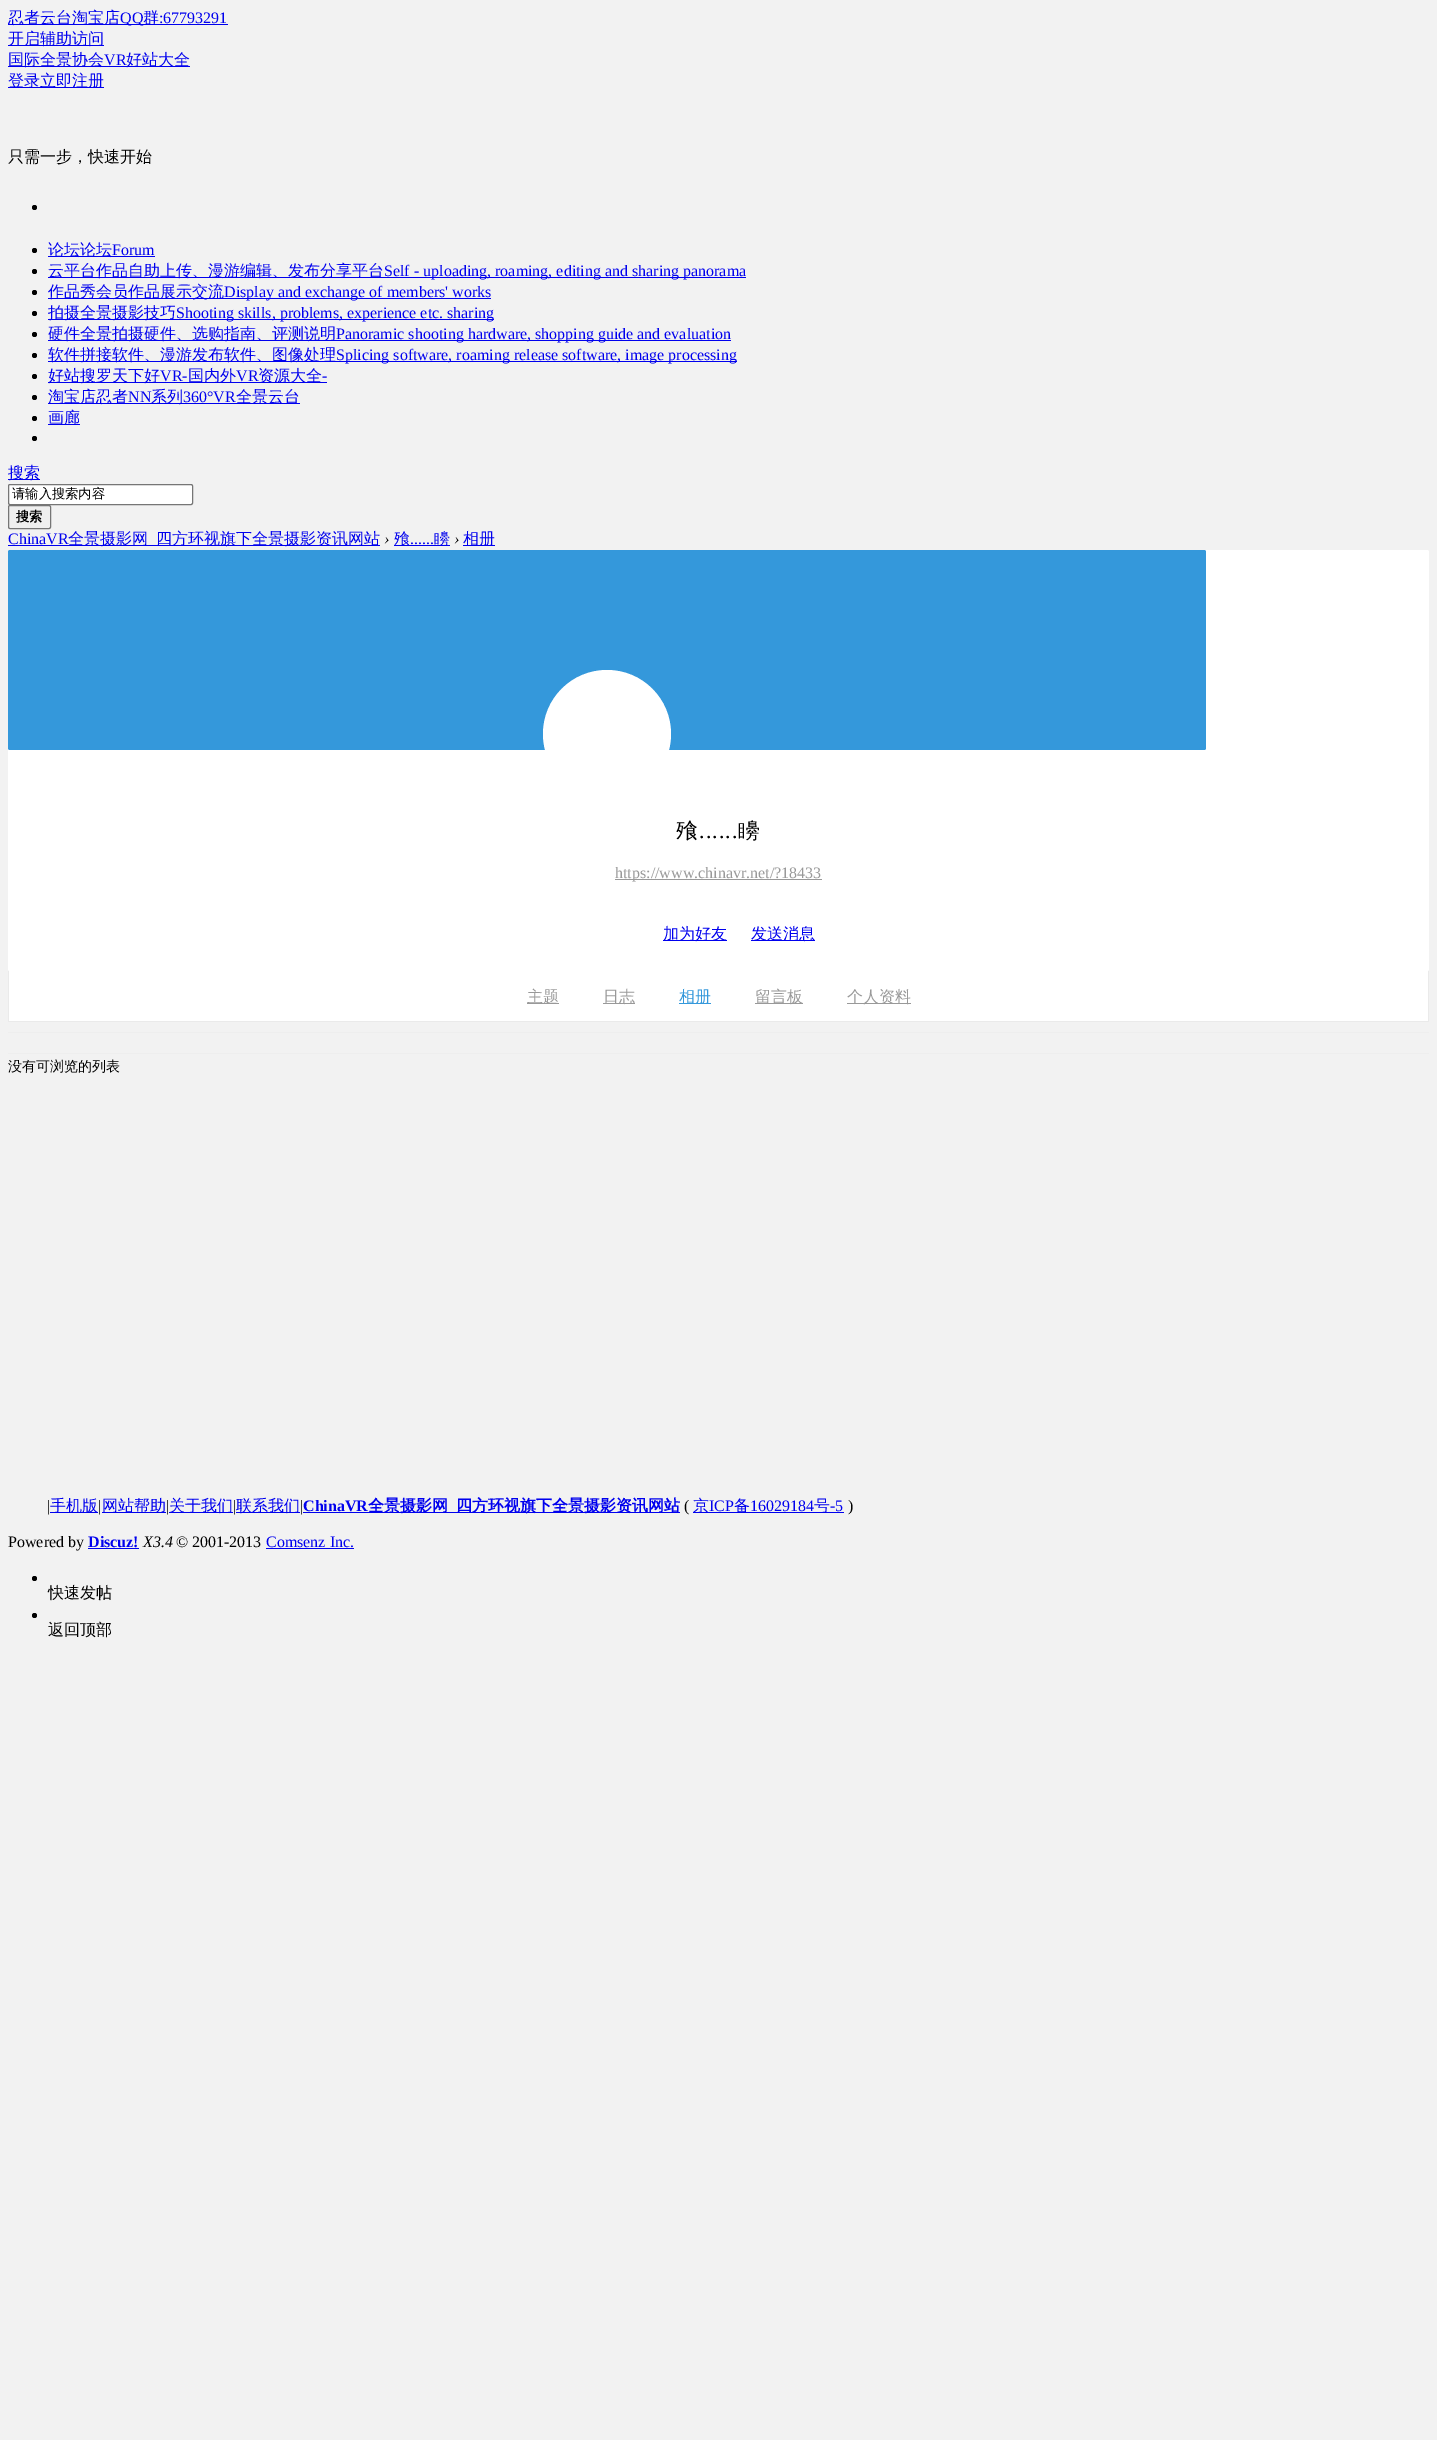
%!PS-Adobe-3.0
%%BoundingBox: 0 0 1437 2440
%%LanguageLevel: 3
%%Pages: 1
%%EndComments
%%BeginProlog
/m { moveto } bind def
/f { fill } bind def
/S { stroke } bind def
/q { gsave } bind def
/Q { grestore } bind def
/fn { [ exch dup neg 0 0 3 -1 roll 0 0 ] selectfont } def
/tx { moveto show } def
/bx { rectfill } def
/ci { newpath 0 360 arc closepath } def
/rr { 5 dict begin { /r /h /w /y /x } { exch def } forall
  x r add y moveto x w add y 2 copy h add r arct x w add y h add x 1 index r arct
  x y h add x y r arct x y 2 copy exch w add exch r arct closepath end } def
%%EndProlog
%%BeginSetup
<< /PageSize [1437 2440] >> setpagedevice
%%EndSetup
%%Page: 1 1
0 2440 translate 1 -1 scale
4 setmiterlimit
0.949 setgray
0 0 1437 2440 bx
0 0 0.933 setrgbcolor
8 24 220 1 bx
/WenQuanYiZenHei-Medium 16 fn
(忍者云台淘宝店) 8 23 tx
/LiberationSerif-Regular 16 fn
(QQ) 120 23 tx
/WenQuanYiZenHei-Medium 16 fn
(群) 143 23 tx
/LiberationSerif-Regular 16 fn
(:67793291) 159 23 tx
8 45 96 1 bx
/WenQuanYiZenHei-Medium 16 fn
(开启辅助访问) 8 44 tx
8 66 182 1 bx
(国际全景协会) 8 65 tx
/LiberationSerif-Regular 16 fn
(VR) 104 65 tx
/WenQuanYiZenHei-Medium 16 fn
(好站大全) 126 65 tx
8 87 96 1 bx
(登录立即注册) 8 86 tx
0 setgray
(只需一步，快速开始) 8 162 tx
34.5 207.5 2.5 ci f
34.5 250.5 2.5 ci f
0 0 0.933 setrgbcolor
48 256 107 1 bx
(论坛论坛) 48 255 tx
/LiberationSerif-Regular 16 fn
(Forum) 112 255 tx
0 setgray
34.5 271.5 2.5 ci f
0 0 0.933 setrgbcolor
48 277 698 1 bx
/WenQuanYiZenHei-Medium 16 fn
(云平台作品自助上传、漫游编辑、发布分享平台) 48 276 tx
/LiberationSerif-Regular 16 fn
(Self - uploading, roaming, editing and sharing panorama) 384 276 tx
0 setgray
34.5 292.5 2.5 ci f
0 0 0.933 setrgbcolor
48 298 443 1 bx
/WenQuanYiZenHei-Medium 16 fn
(作品秀会员作品展示交流) 48 297 tx
/LiberationSerif-Regular 16 fn
(Display and exchange of members' works) 224 297 tx
0 setgray
34.5 313.5 2.5 ci f
0 0 0.933 setrgbcolor
48 319 446 1 bx
/WenQuanYiZenHei-Medium 16 fn
(拍摄全景摄影技巧) 48 318 tx
/LiberationSerif-Regular 16 fn
(Shooting skills, problems, experience etc. sharing) 176 318 tx
0 setgray
34.5 334.5 2.5 ci f
0 0 0.933 setrgbcolor
48 340 683 1 bx
/WenQuanYiZenHei-Medium 16 fn
(硬件全景拍摄硬件、选购指南、评测说明) 48 339 tx
/LiberationSerif-Regular 16 fn
(Panoramic shooting hardware, shopping guide and evaluation) 336 339 tx
0 setgray
34.5 355.5 2.5 ci f
0 0 0.933 setrgbcolor
48 361 689 1 bx
/WenQuanYiZenHei-Medium 16 fn
(软件拼接软件、漫游发布软件、图像处理) 48 360 tx
/LiberationSerif-Regular 16 fn
(Splicing software, roaming release software, image processing) 336 360 tx
0 setgray
34.5 376.5 2.5 ci f
0 0 0.933 setrgbcolor
48 382 279 1 bx
/WenQuanYiZenHei-Medium 16 fn
(好站搜罗天下好) 48 381 tx
/LiberationSerif-Regular 16 fn
(VR-) 160 381 tx
/WenQuanYiZenHei-Medium 16 fn
(国内外) 188 381 tx
/LiberationSerif-Regular 16 fn
(VR) 236 381 tx
/WenQuanYiZenHei-Medium 16 fn
(资源大全) 258 381 tx
/LiberationSerif-Regular 16 fn
(-) 322 381 tx
0 setgray
34.5 397.5 2.5 ci f
0 0 0.933 setrgbcolor
48 403 252 1 bx
/WenQuanYiZenHei-Medium 16 fn
(淘宝店忍者) 48 402 tx
/LiberationSerif-Regular 16 fn
(NN) 128 402 tx
/WenQuanYiZenHei-Medium 16 fn
(系列) 151 402 tx
/LiberationSerif-Regular 16 fn
(360°VR) 183 402 tx
/WenQuanYiZenHei-Medium 16 fn
(全景云台) 236 402 tx
0 setgray
34.5 418.5 2.5 ci f
0 0 0.933 setrgbcolor
48 424 32 1 bx
(画廊) 48 423 tx
0 setgray
34.5 438.5 2.5 ci f
0 0 0.933 setrgbcolor
8 479 32 1 bx
(搜索) 8 478 tx
1 setgray
8.5 484.5 184 20 1.5 rr q f Q
0.463 setgray
S
/WenQuanYiZenHei-Medium 13.25 fn
0 setgray
(请输入搜索内容) 12 498 tx
0.937 setgray
8.5 505.5 42 23 1.5 rr q f Q
0.463 setgray
S
/WenQuanYiZenHei-Bold 13.25 fn
0 setgray
(搜索) 16 521 tx
/LiberationSerif-Regular 16 fn
0 0 0.933 setrgbcolor
(ChinaVR) 8 544 tx
8 545 372 1 bx
/WenQuanYiZenHei-Medium 16 fn
(全景摄影网) 68 544 tx
(四方环视旗下全景摄影资讯网站) 156 544 tx
/LiberationSerif-Italic 16 fn
0 setgray
(›) 384 544 tx
0 0 0.933 setrgbcolor
394 545 56 1 bx
/WenQuanYiZenHei-Medium 16 fn
(飱) 394 544 tx
/LiberationSerif-Regular 16 fn
(......) 410 544 tx
/WenQuanYiZenHei-Medium 16 fn
(矏) 434 544 tx
/LiberationSerif-Italic 16 fn
0 setgray
(›) 454 544 tx
0 0 0.933 setrgbcolor
463 545 32 1 bx
/WenQuanYiZenHei-Medium 16 fn
(相册) 463 544 tx
1 setgray
8 550 1421 421 2 rr f
0.204 0.596 0.859 setrgbcolor
8 550 1198 200 2 rr f
1 setgray
607 734 64 ci f
/WenQuanYiZenHei-Medium 22 fn
0 setgray
676 838 m 1 0 (飱) ashow
/LiberationSerif-Regular 22 fn
699 838 m 1 0 (......) ashow
/WenQuanYiZenHei-Medium 22 fn
738 838 m 1 0 (矏) ashow
0.6 setgray
615 879 207 1 bx
/LiberationSerif-Regular 16 fn
(https://www.chinavr.net/?18433) 615 878 tx
0 0 0.933 setrgbcolor
663 940 64 1 bx
/WenQuanYiZenHei-Medium 16 fn
(加为好友) 663 939 tx
751 940 64 1 bx
(发送消息) 751 939 tx
1 setgray
9 971 1419 50 bx
0.918 setgray
1428 971 1 51 bx
8 1021 1421 1 bx
8 971 1 51 bx
0.6 setgray
527 1003 32 1 bx
(主题) 527 1002 tx
603 1003 32 1 bx
(日志) 603 1002 tx
0.204 0.596 0.859 setrgbcolor
679 1003 32 1 bx
(相册) 679 1002 tx
0.6 setgray
755 1003 48 1 bx
(留言板) 755 1002 tx
847 1003 64 1 bx
(个人资料) 847 1002 tx
0.933 setgray
8 1032 1421 1 bx
8 1053 1421 1 bx
/WenQuanYiZenHei-Medium 14 fn
0 setgray
(没有可浏览的列表) 8 1071 tx
/LiberationSerif-Regular 16 fn
(|) 47 1511 tx
0 0 0.933 setrgbcolor
50 1512 48 1 bx
/WenQuanYiZenHei-Medium 16 fn
(手机版) 50 1511 tx
/LiberationSerif-Regular 16 fn
0 setgray
(|) 98 1511 tx
0 0 0.933 setrgbcolor
102 1512 64 1 bx
/WenQuanYiZenHei-Medium 16 fn
(网站帮助) 102 1511 tx
/LiberationSerif-Regular 16 fn
0 setgray
(|) 166 1511 tx
0 0 0.933 setrgbcolor
169 1512 64 1 bx
/WenQuanYiZenHei-Medium 16 fn
(关于我们) 169 1511 tx
/LiberationSerif-Regular 16 fn
0 setgray
(|) 233 1511 tx
0 0 0.933 setrgbcolor
236 1512 64 1 bx
/WenQuanYiZenHei-Medium 16 fn
(联系我们) 236 1511 tx
/LiberationSerif-Regular 16 fn
0 setgray
(|) 300 1511 tx
/LiberationSerif-Bold 16 fn
0 0 0.933 setrgbcolor
(ChinaVR) 303 1511 tx
303 1512 377 1 bx
/WenQuanYiZenHei-Bold 16 fn
(全景摄影网) 368 1511 tx
(四方环视旗下全景摄影资讯网站) 456 1511 tx
/LiberationSerif-Regular 16 fn
0 setgray
(\() 684 1511 tx
0 0 0.933 setrgbcolor
693 1512 151 1 bx
/WenQuanYiZenHei-Medium 16 fn
(京) 693 1511 tx
/LiberationSerif-Regular 16 fn
(ICP) 709 1511 tx
/WenQuanYiZenHei-Medium 16 fn
(备) 734 1511 tx
/LiberationSerif-Regular 16 fn
(16029184) 750 1511 tx
/WenQuanYiZenHei-Medium 16 fn
(号) 814 1511 tx
/LiberationSerif-Regular 16 fn
(-5) 830 1511 tx
0 setgray
(\)) 848 1511 tx
(Powered by) 8 1547 tx
/LiberationSerif-Bold 16 fn
0 0 0.933 setrgbcolor
(Discuz!) 88 1547 tx
88 1548 51 1 bx
/LiberationSerif-Italic 16 fn
0 setgray
(X3.4) 143 1547 tx
/LiberationSerif-Regular 16 fn
(© 2001-2013) 176 1547 tx
0 0 0.933 setrgbcolor
(Comsenz Inc.) 266 1547 tx
266 1548 88 1 bx
0 setgray
34.5 1578.5 2.5 ci f
/WenQuanYiZenHei-Medium 16 fn
(快速发帖) 48 1598 tx
34.5 1615.5 2.5 ci f
(返回顶部) 48 1635 tx
showpage
%%EOF
